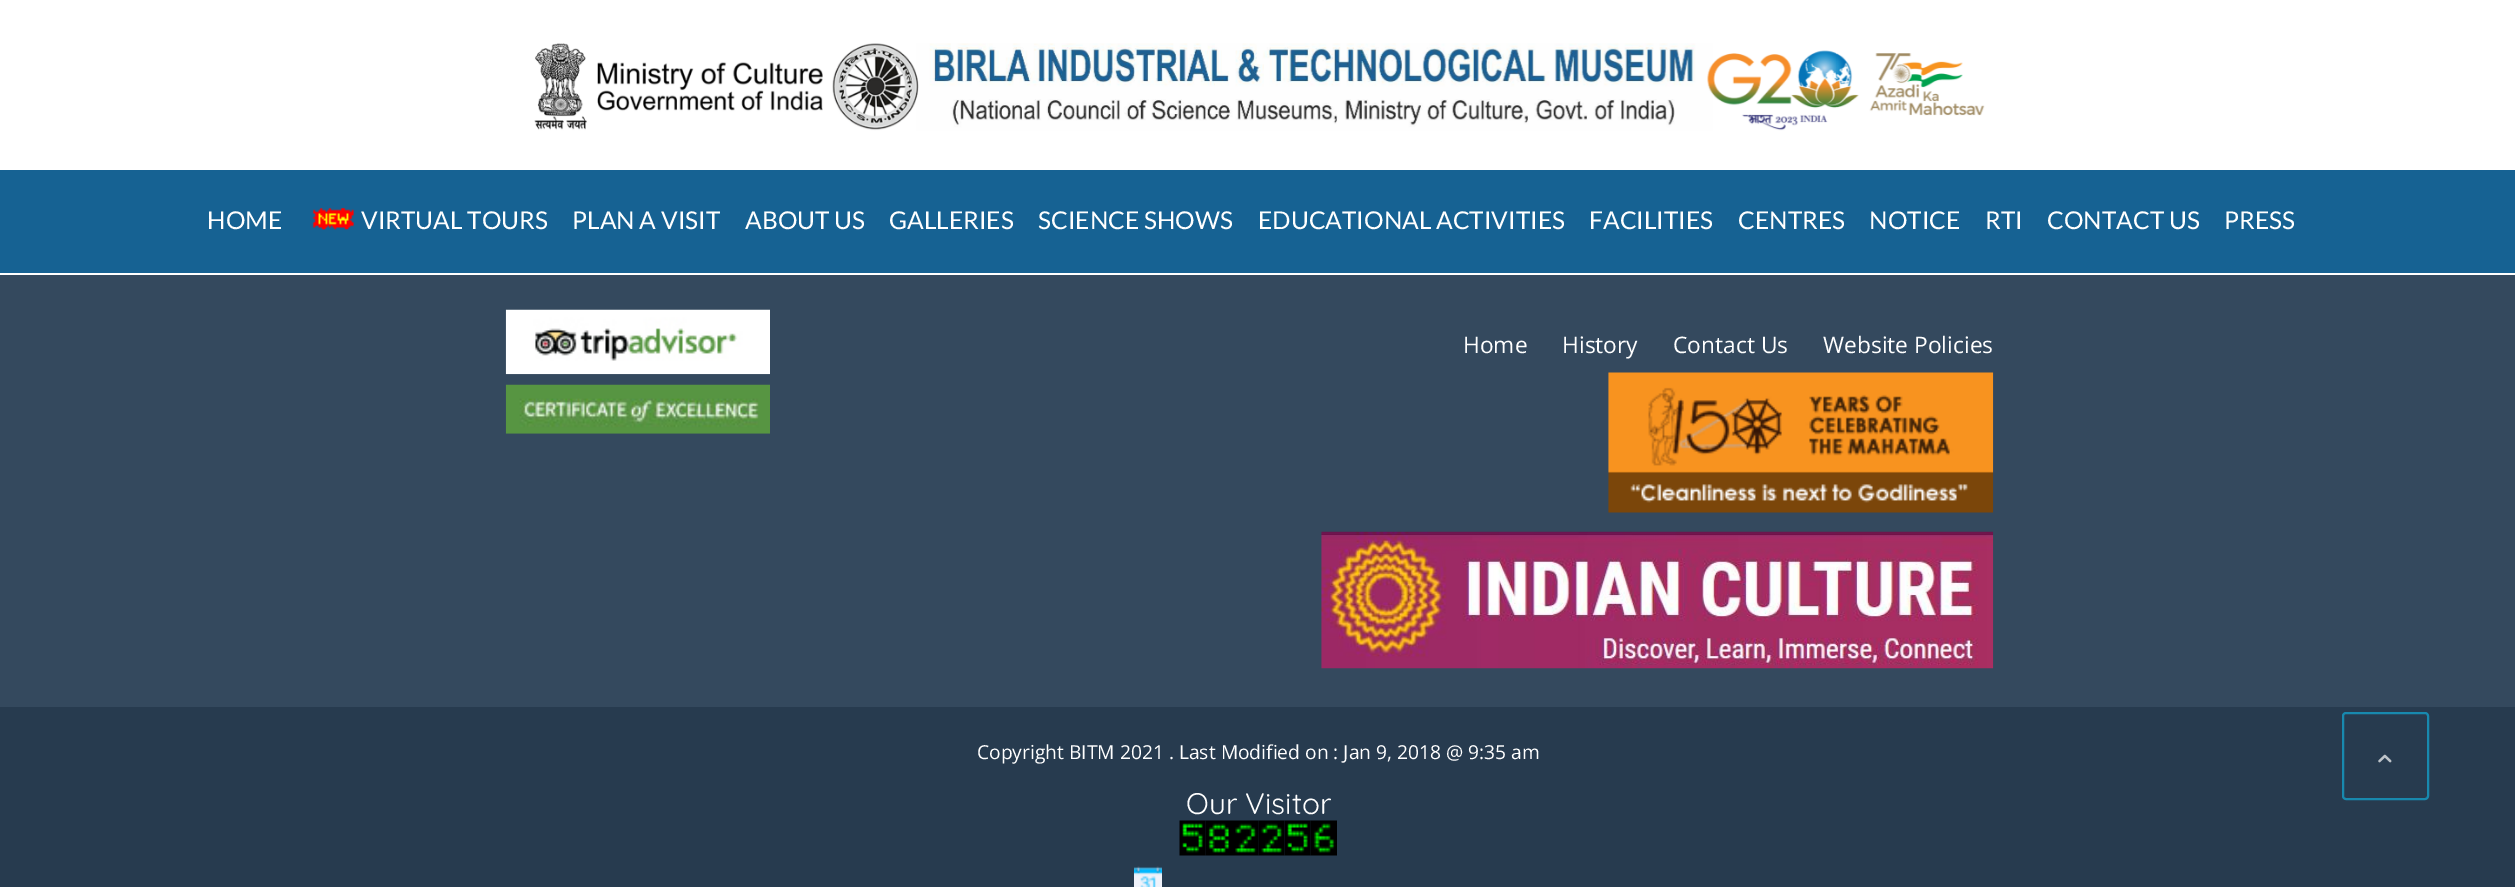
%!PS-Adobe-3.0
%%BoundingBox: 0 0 2515 887
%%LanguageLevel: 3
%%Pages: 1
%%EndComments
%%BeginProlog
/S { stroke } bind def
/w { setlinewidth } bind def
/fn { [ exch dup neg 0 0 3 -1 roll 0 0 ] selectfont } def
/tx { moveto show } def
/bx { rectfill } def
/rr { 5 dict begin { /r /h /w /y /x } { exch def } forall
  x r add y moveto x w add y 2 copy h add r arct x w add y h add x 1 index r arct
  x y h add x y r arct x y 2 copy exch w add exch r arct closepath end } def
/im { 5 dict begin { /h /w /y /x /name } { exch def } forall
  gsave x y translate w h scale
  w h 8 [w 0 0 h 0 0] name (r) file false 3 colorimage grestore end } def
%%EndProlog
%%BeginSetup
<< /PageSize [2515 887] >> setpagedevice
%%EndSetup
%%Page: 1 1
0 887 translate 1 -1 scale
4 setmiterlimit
0.204 0.286 0.369 setrgbcolor
0 0 2515 887 bx
1 setgray
0 0 2515 170 bx
(image0.raw) 534 43 1451 88 im
0.086 0.384 0.576 setrgbcolor
0 170 2515 103 bx
1 setgray
0 273 2515 2 bx
/Lato-Regular 24.5 fn
(HOME) 207 229 tx
(image1.raw) 312 208 42 22 im
(VIRTUAL TOURS) 361 229 tx
(PLAN A VISIT) 572 229 tx
(ABOUT US) 745 229 tx
(GALLERIES) 889 229 tx
(SCIENCE SHOWS) 1038 229 tx
(EDUCATIONAL ACTIVITIES) 1258 229 tx
(FACILITIES) 1589 229 tx
(CENTRES) 1738 229 tx
(NOTICE) 1869 229 tx
(RTI) 1985 229 tx
(CONTACT US) 2047 229 tx
(PRESS) 2224 229 tx
(image2.raw) 505 309 265 66 im
(image3.raw) 505 384 265 50 im
/OpenSans-Regular 22.75 fn
(Home) 1463 353 tx
(History) 1562 353 tx
(Contact Us) 1673 353 tx
(Website Policies) 1823 353 tx
(image4.raw) 1608 372 386 141 im
(image5.raw) 1321 531 673 138 im
0.153 0.231 0.31 setrgbcolor
0 707 2515 180 bx
/OpenSans-Regular 19.25 fn
1 setgray
(Copyright BITM 2021 . Last Modified on : Jan 9, 2018 @ 9:35 am) 977 759 tx
/Quicksand-Light 29.75 fn
(Our Visitor) 1186 814 tx
(image6.raw) 1179 820 27 36 im
(image7.raw) 1205 820 27 36 im
(image8.raw) 1232 820 27 36 im
(image9.raw) 1258 820 27 36 im
(image10.raw) 1284 820 27 36 im
(image11.raw) 1310 820 27 36 im
(image12.raw) 1134 866 28 21 im
0.094 0.537 0.682 setrgbcolor
2 w
2343 713 85 86 3 rr S
(image13.raw) 2378 754 14 9 im
showpage
%%EOF
